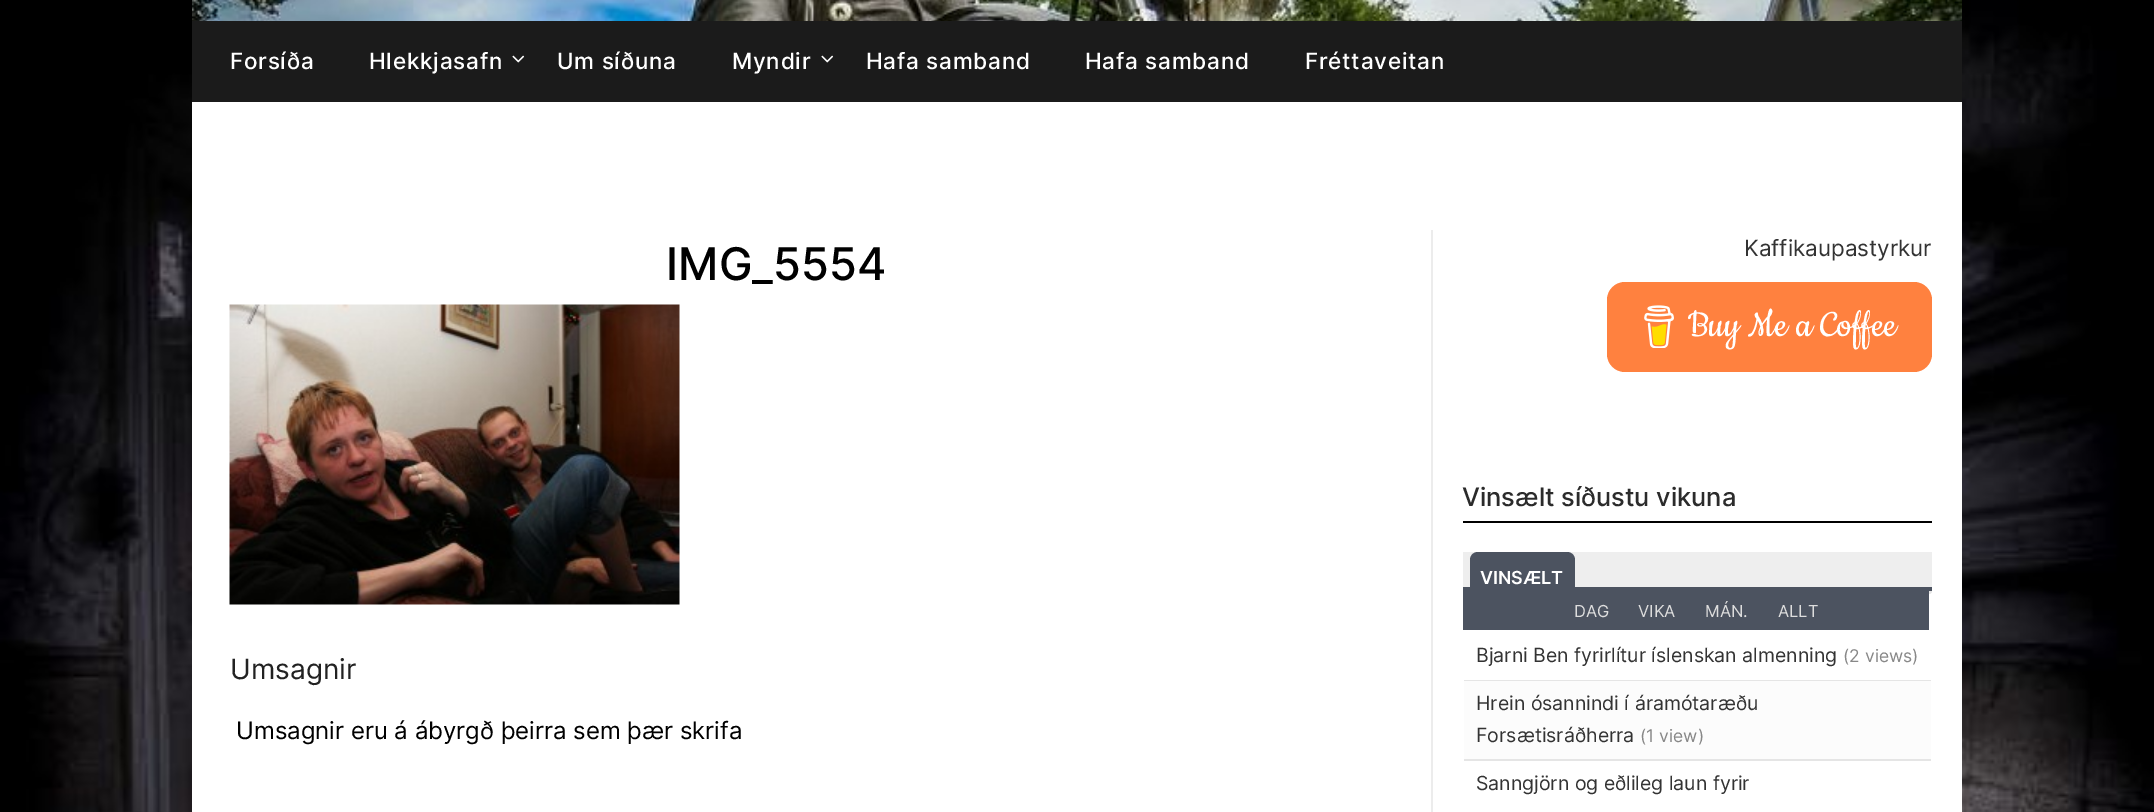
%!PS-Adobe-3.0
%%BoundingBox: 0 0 2154 812
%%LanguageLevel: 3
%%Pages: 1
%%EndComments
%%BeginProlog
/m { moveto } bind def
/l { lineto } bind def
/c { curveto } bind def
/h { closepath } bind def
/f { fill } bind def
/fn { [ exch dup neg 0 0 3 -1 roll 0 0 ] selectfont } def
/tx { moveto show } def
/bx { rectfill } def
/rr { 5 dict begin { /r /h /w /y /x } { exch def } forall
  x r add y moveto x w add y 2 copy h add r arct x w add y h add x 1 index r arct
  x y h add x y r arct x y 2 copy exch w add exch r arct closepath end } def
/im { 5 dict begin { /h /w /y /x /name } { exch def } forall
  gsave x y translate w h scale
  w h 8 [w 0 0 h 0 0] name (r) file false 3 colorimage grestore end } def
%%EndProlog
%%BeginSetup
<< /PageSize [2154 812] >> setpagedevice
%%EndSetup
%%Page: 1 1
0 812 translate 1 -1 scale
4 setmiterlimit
1 setgray
0 0 2154 812 bx
(image0.raw) 0 0 2154 812 im
(image1.raw) 192 0 1770 21 im
0.106 setgray
192 21 1770 81 bx
/Inter-Medium 22.5 fn
1 setgray
230 69 m 0.75 0 (Forsíða) ashow
369 69 m 0.75 0 (Hlekkjasafn) ashow
(image2.raw) 512 55 13 8 im
557 69 m 0.75 0 (Um síðuna) ashow
732 69 m 0.75 0 (Myndir) ashow
(image2.raw) 821 55 13 8 im
866 69 m 0.75 0 (Hafa samband) ashow
1085 69 m 0.75 0 (Hafa samband) ashow
1305 69 m 0.75 0 (Fréttaveitan) ashow
192 102 1770 710 bx
/Inter-Medium 45 fn
0 setgray
(IMG_5554) 666 280 tx
(image3.raw) 229 304 451 301 im
/Inter-Regular 28 fn
0.133 setgray
(Umsagnir) 230 679 tx
/Inter-Regular 24 fn
0 setgray
(Umsagnir eru á ábyrgð þeirra sem þær skrifa) 236 739 tx
0.925 setgray
1431 230 2 582 bx
/Inter-Regular 22.5 fn
0.2 setgray
(Kaffikaupastyrkur) 1744 256 tx
1 0.506 0.247 setrgbcolor
1607 282 325 90 18 rr f
(image4.raw) 1644 305 30 43 im
/Cookie-Regular 42 fn
1 setgray
(Buy Me a Coffee) 1688 336 tx
0 setgray
1463 521 469 2 bx
/Inter-Medium 25.5 fn
0.169 setgray
(Vinsælt síðustu vikuna) 1462 506 tx
0.933 setgray
1463 552 469 35 bx
0.298 0.325 0.376 setrgbcolor
1463 587 469 5 bx
1478 552 m 1567 552 l 1571.5 552 1575 555.5 1575 560 c 1575 599 l 1470 599 l 1470 560 l 1470 555.5 1473.5 552 1478 552 c h f
/Inter-SemiBold 18 fn
1 setgray
(VINSÆLT) 1480 584 tx
0.898 setgray
1463 591 m 1932 591 l 1932 592.5 1930.5 594 1929 594 c 1466 594 l 1464.5 594 1463 592.5 1463 591 c h f
0.298 0.325 0.376 setrgbcolor
1463 591 466 39 bx
/Inter-Regular 16.5 fn
0.867 setgray
(DAG) 1574 617 tx
(VIKA) 1638 617 tx
(MÁN.) 1705 617 tx
(ALLT) 1778 617 tx
0.898 setgray
1464 680 467 1 bx
/Inter-Regular 19.5 fn
0.2 setgray
(Bjarni Ben fyrirlítur íslenskan almenning) 1476 662 tx
/Inter-Regular 17.5 fn
0.533 setgray
(\(2 views\)) 1843 662 tx
0.988 setgray
1464 681 467 78 bx
0.898 setgray
1464 759 467 2 bx
/Inter-Regular 19.5 fn
0.2 setgray
(Hrein ósannindi í áramótaræðu) 1476 710 tx
(Forsætisráðherra) 1476 742 tx
/Inter-Regular 17.5 fn
0.533 setgray
(\(1 view\)) 1640 742 tx
/Inter-Regular 19.5 fn
0.2 setgray
(Sanngjörn og eðlileg laun fyrir) 1476 790 tx
showpage
%%EOF
